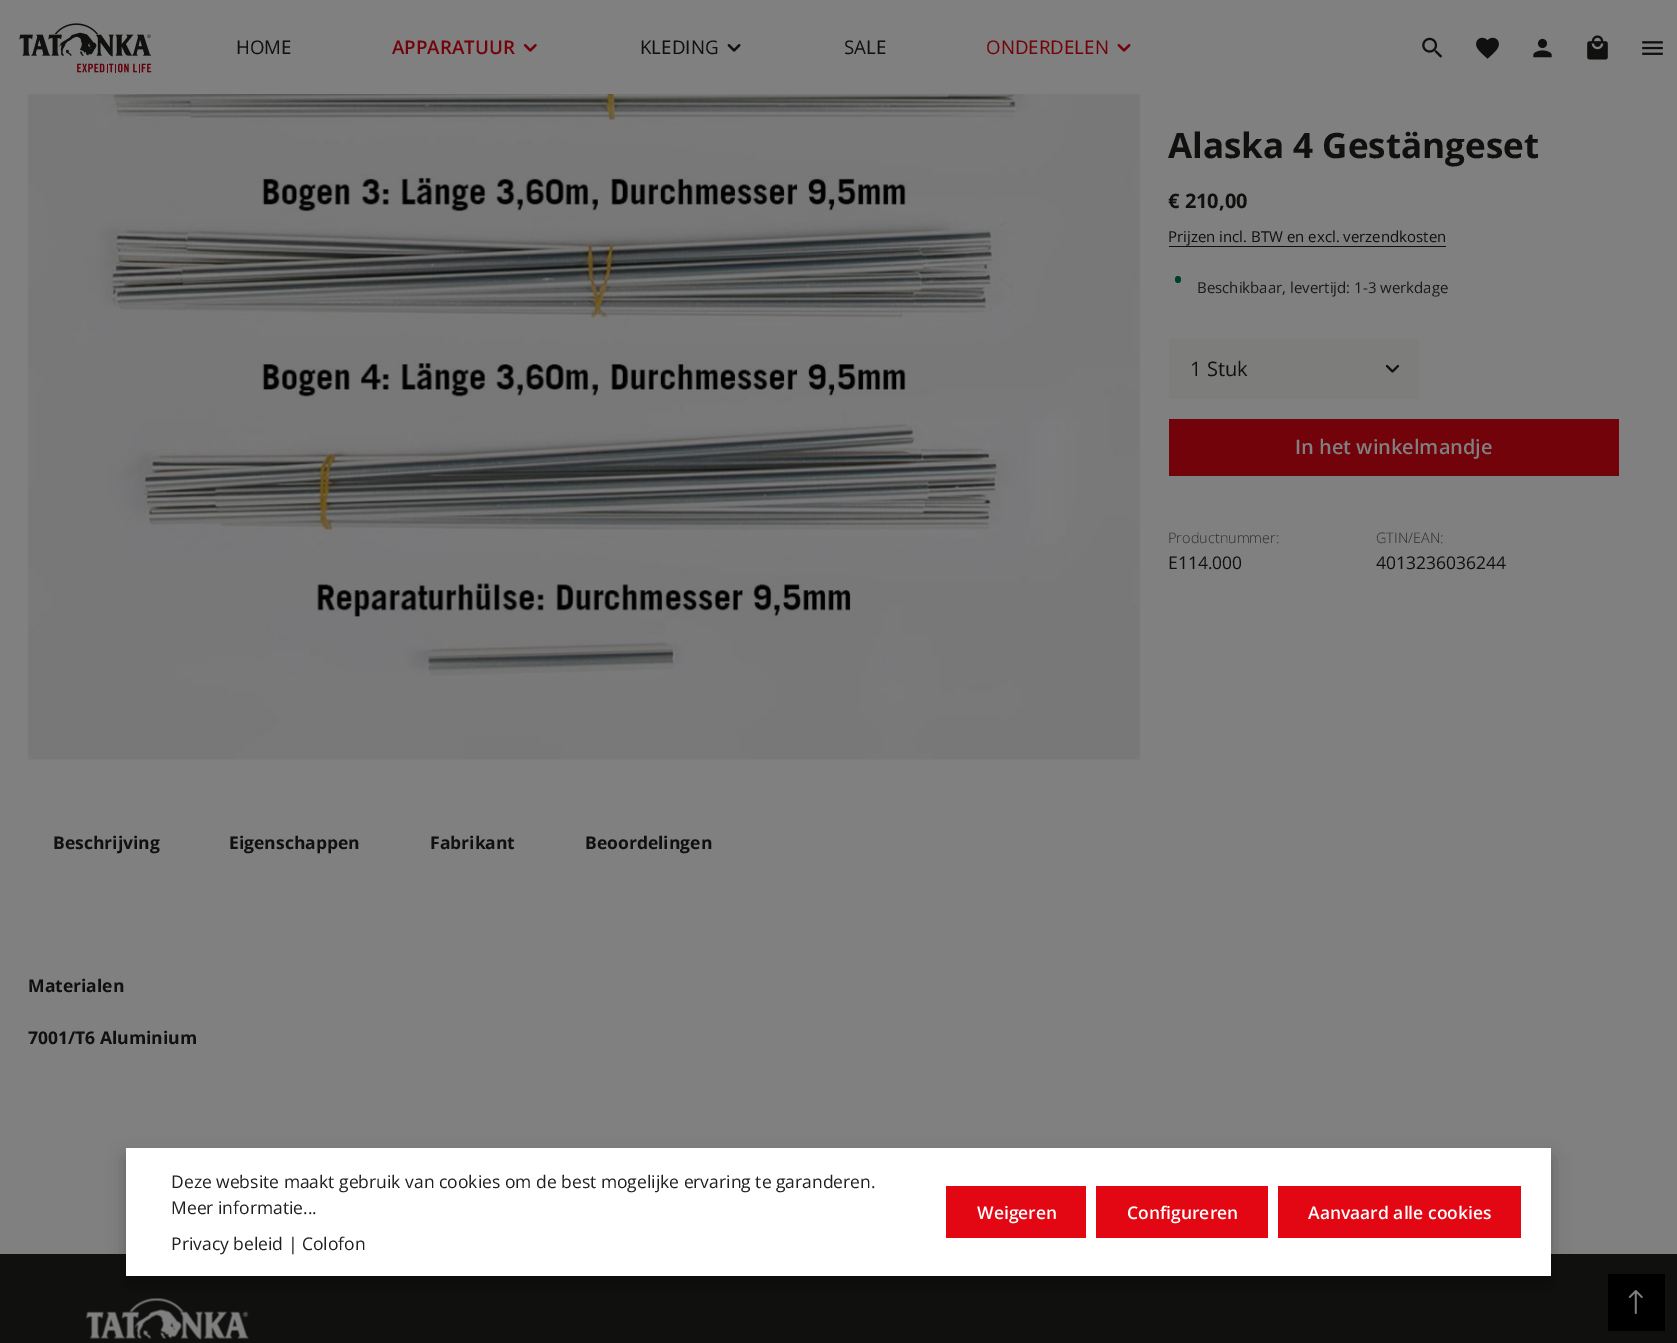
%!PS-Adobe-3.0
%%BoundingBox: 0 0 1677 1343
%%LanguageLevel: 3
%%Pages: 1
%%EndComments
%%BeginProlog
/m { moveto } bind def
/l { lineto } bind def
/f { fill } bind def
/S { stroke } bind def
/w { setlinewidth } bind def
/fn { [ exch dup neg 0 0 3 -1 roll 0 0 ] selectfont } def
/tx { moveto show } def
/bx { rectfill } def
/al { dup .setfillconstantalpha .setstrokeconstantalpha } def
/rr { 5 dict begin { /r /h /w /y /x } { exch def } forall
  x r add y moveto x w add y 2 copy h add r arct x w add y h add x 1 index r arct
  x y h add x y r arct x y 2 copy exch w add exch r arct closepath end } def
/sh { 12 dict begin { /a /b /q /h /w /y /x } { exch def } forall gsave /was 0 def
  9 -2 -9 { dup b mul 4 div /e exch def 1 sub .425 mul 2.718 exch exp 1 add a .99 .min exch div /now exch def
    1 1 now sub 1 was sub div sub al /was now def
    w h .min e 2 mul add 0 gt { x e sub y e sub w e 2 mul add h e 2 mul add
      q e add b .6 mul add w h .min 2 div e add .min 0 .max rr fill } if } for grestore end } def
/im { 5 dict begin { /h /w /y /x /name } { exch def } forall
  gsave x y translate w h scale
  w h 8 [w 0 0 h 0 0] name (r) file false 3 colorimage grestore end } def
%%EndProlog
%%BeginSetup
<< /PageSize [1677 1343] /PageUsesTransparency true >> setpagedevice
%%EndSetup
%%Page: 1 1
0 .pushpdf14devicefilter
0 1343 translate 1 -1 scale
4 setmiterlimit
0.502 setgray
0 0 1677 1343 bx
0.486 setgray
28 94 1112 666 bx
(image0.raw) 19 23 133 50 im
/OpenSans-Regular 18.75 fn
0.063 0.063 0.059 setrgbcolor
(HOME) 236 54 tx
/OpenSans-SemiBold 18.75 fn
0.447 0.012 0.039 setrgbcolor
(APPARATUUR) 392 54 tx
(image1.raw) 523 44 14 8 im
/OpenSans-Regular 18.75 fn
0.063 0.063 0.059 setrgbcolor
(KLEDING) 640 54 tx
(image2.raw) 727 44 14 8 im
(SALE) 844 54 tx
0.447 0.012 0.039 setrgbcolor
(ONDERDELEN) 986 54 tx
(image3.raw) 1117 44 14 8 im
(image4.raw) 1422 37 21 21 im
(image5.raw) 1476 37 23 22 im
(image6.raw) 1533 38 19 20 im
(image7.raw) 1587 35 21 25 im
(image8.raw) 1642 41 21 14 im
(image9.raw) 28 94 1112 665 im
/OpenSans-Bold 35 fn
0.063 0.063 0.059 setrgbcolor
(Alaska 4 Gestängeset) 1168 158 tx
/OpenSans-Bold 20 fn
(€ 210,00) 1168 208 tx
/OpenSans-Regular 15 fn
(Prijzen incl. BTW en excl. verzendkosten) 1168 242 tx
1169 246 277 1 bx
0 0.247 0.153 setrgbcolor
1175 276 6 7 3 rr f
0.102 setgray
(Beschikbaar, levertijd: 1-3 werkdage) 1197 293 tx
0.49 0.49 0.486 setrgbcolor
1169 339 250 60 bx
0.063 0.063 0.059 setrgbcolor
1.9 w
1 setlinecap
1 setlinejoin
1387 366 m 1392.5 371.5 l 1398 366 l S
/OpenSans-Regular 20 fn
(1 Stuk) 1190 376 tx
0.447 0.012 0.039 setrgbcolor
1169 419 450 57 bx
/OpenSans-SemiBold 20 fn
0.502 setgray
(In het winkelmandje) 1295 454 tx
/OpenSans-Light 14.5 fn
0.173 0.173 0.169 setrgbcolor
(Productnummer:) 1168 543 tx
/OpenSans-Regular 17.5 fn
0.063 0.063 0.059 setrgbcolor
(E114.000) 1168 569 tx
/OpenSans-Light 14.5 fn
0.173 0.173 0.169 setrgbcolor
(GTIN/EAN:) 1376 543 tx
/OpenSans-Regular 17.5 fn
0.063 0.063 0.059 setrgbcolor
(4013236036244) 1376 569 tx
/OpenSans-Bold 17.5 fn
(Beschrijving) 53 849 tx
(Eigenschappen) 229 849 tx
(Fabrikant) 430 849 tx
(Beoordelingen) 585 849 tx
(Materialen) 28 992 tx
(7001/T6 Aluminium) 28 1044 tx
0 1254 1677 89 bx
(image10.raw) 86 1298 163 42 im
0 setgray
126 1158 1425 128 0 10 0.25 sh
1 setgray
126 1148 1425 128 bx
/OpenSans-Regular 17.5 fn
0.125 0.125 0.118 setrgbcolor
(Deze website maakt gebruik van cookies om de best mogelijke ervaring te garanderen.) 171 1188 tx
(Meer informatie...) 171 1214 tx
(Privacy beleid | Colofon) 171 1250 tx
0.89 0.024 0.075 setrgbcolor
946 1186 140 52 bx
/OpenSans-SemiBold 17.5 fn
1 setgray
(Weigeren) 977 1219 tx
0.89 0.024 0.075 setrgbcolor
1096 1186 172 52 bx
1 setgray
(Configureren) 1127 1219 tx
0.89 0.024 0.075 setrgbcolor
1278 1186 243 52 bx
1 setgray
(Aanvaard alle cookies) 1308 1219 tx
0 setgray
1608 1274 57 57 bx
(image11.raw) 1628 1290 15 24 im
.poppdf14devicefilter showpage
%%EOF
